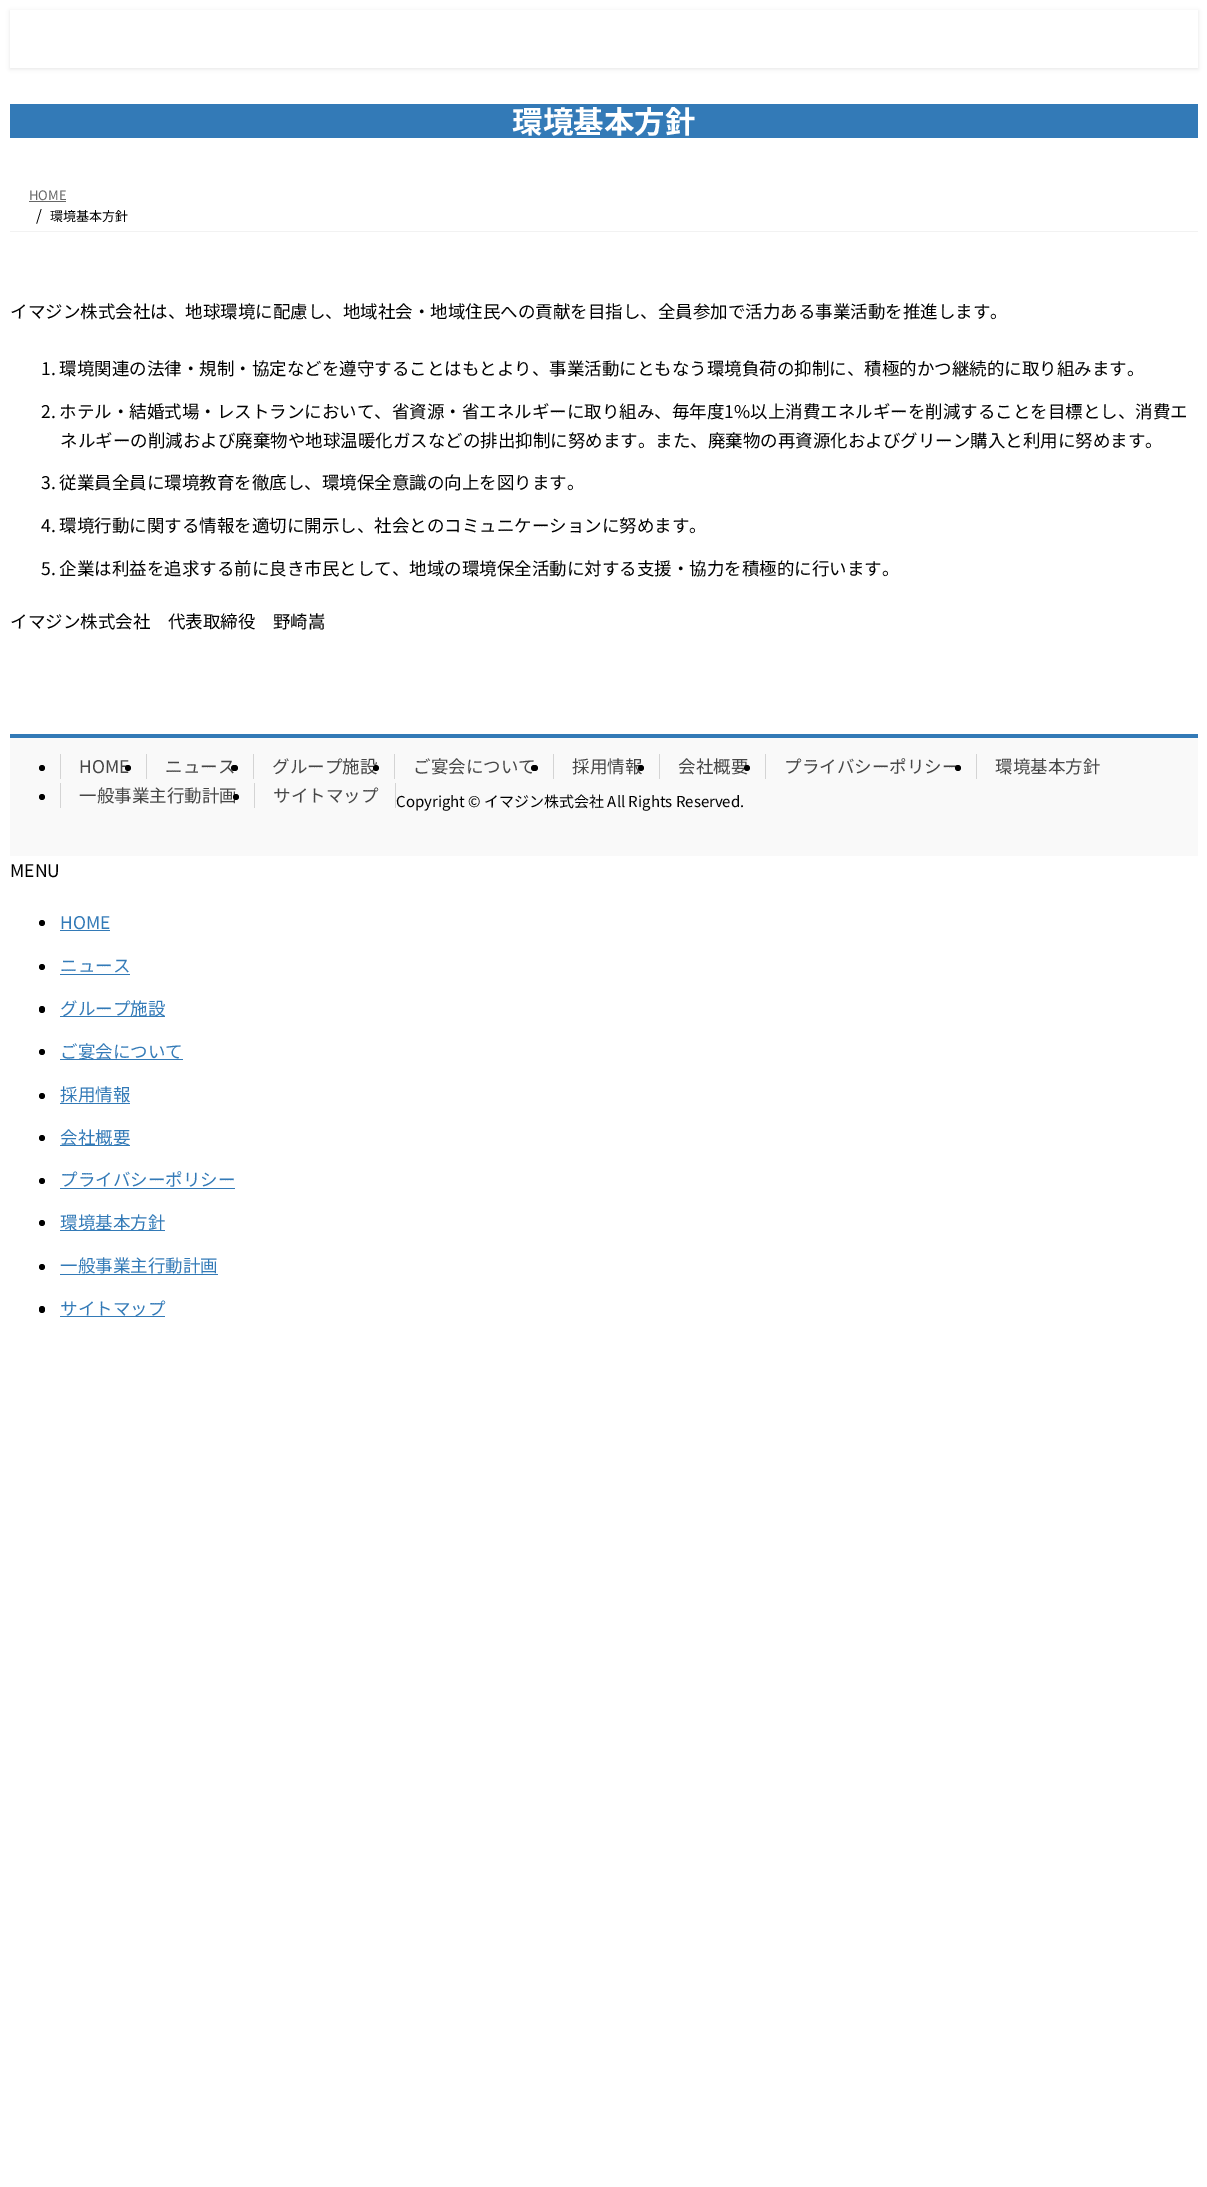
%!PS-Adobe-3.0
%%BoundingBox: 0 0 1207 2187
%%LanguageLevel: 3
%%Pages: 1
%%EndComments
%%BeginProlog
/f { fill } bind def
/fn { [ exch dup neg 0 0 3 -1 roll 0 0 ] selectfont } def
/tx { moveto show } def
/bx { rectfill } def
/al { dup .setfillconstantalpha .setstrokeconstantalpha } def
/ci { newpath 0 360 arc closepath } def
/rr { 5 dict begin { /r /h /w /y /x } { exch def } forall
  x r add y moveto x w add y 2 copy h add r arct x w add y h add x 1 index r arct
  x y h add x y r arct x y 2 copy exch w add exch r arct closepath end } def
/sh { 12 dict begin { /a /b /q /h /w /y /x } { exch def } forall gsave /was 0 def
  9 -2 -9 { dup b mul 4 div /e exch def 1 sub .425 mul 2.718 exch exp 1 add a .99 .min exch div /now exch def
    1 1 now sub 1 was sub div sub al /was now def
    w h .min e 2 mul add 0 gt { x e sub y e sub w e 2 mul add h e 2 mul add
      q e add b .6 mul add w h .min 2 div e add .min 0 .max rr fill } if } for grestore end } def
%%EndProlog
%%BeginSetup
<< /PageSize [1207 2187] /PageUsesTransparency true >> setpagedevice
%%EndSetup
%%Page: 1 1
0 .pushpdf14devicefilter
0 2187 translate 1 -1 scale
4 setmiterlimit
1 setgray
0 0 1207 2187 bx
0 setgray
10 11 1188 58 0 2 0.1 sh
1 setgray
10 10 1188 58 bx
0.2 0.478 0.718 setrgbcolor
10 104 1188 34 bx
/NotoSansJP-Bold 30.5 fn
1 setgray
(環境基本方針) 512 133 tx
0.949 setgray
10 231 1188 1 bx
/NotoSansJP-Regular 13 fn
0.4 setgray
(HOME) 29 200 tx
29 201 37 1 bx
/NotoSansJP-Regular 15 fn
0 setgray
(/) 36 221 tx
/NotoSansJP-Regular 13 fn
(環境基本方針) 50 221 tx
/NotoSansJP-Regular 17.5 fn
(イマジン株式会社は、地球環境に配慮し、地域社会・地域住民への貢献を目指し、全員参加で活力ある事業活動を推進します。) 10 318 tx
(1. 環境関連の法律・規制・協定などを遵守することはもとより、事業活動にともなう環境負荷の抑制に、積極的かつ継続的に取り組みます。) 41 375 tx
(2. ホテル・結婚式場・レストランにおいて、省資源・省エネルギーに取り組み、毎年度1%以上消費エネルギーを削減することを目標とし、消費エ) 41 418 tx
(ネルギーの削減および廃棄物や地球温暖化ガスなどの排出抑制に努めます。また、廃棄物の再資源化およびグリーン購入と利用に努めます。) 60 447 tx
(3. 従業員全員に環境教育を徹底し、環境保全意識の向上を図ります。) 41 489 tx
(4. 環境行動に関する情報を適切に開示し、社会とのコミュニケーションに努めます。) 41 532 tx
(5. 企業は利益を追求する前に良き市民として、地域の環境保全活動に対する支援・協力を積極的に行います。) 41 575 tx
(イマジン株式会社　代表取締役　野崎嵩) 10 628 tx
0.976 setgray
10 738 1188 118 bx
0.2 0.478 0.718 setrgbcolor
10 734 1188 4 bx
0 setgray
42 768 3 ci f
0.275 setgray
(HOME) 79 773 tx
0.831 setgray
60 754 1 25 bx
0 setgray
128 768 3 ci f
0.275 setgray
(ニュース) 165 773 tx
0.831 setgray
146 754 1 25 bx
0 setgray
231 765 7 6 3 rr f
0.275 setgray
(グループ施設) 272 773 tx
0.831 setgray
253 754 1 25 bx
0 setgray
376 768 3 ci f
0.275 setgray
(ご宴会について) 413 773 tx
0.831 setgray
394 754 1 25 bx
0 setgray
531 765 7 6 3 rr f
0.275 setgray
(採用情報) 572 773 tx
0.831 setgray
553 754 1 25 bx
0 setgray
641 768 3 ci f
0.275 setgray
(会社概要) 678 773 tx
0.831 setgray
659 754 1 25 bx
0 setgray
747 768 3 ci f
0.275 setgray
(プライバシーポリシー) 784 773 tx
0.831 setgray
765 754 1 25 bx
0 setgray
958 768 3 ci f
0.275 setgray
(環境基本方針) 995 773 tx
0.831 setgray
976 754 1 25 bx
0 setgray
42 797 3 ci f
0.275 setgray
(一般事業主行動計画) 79 802 tx
0.831 setgray
60 783 1 25 bx
0 setgray
236 797 3 ci f
0.275 setgray
(サイトマップ) 273 802 tx
0.831 setgray
395 783 1 25 bx
254 783 1 25 bx
/NotoSansJP-Regular 15 fn
0 setgray
(Copyright © イマジン株式会社 All Rights Reserved.) 396 807 tx
/NotoSansJP-Regular 17.5 fn
(MENU) 10 877 tx
42 923 3 ci f
0.2 0.478 0.718 setrgbcolor
(HOME) 60 929 tx
60 930 50 1 bx
0 setgray
42 967 3 ci f
0.2 0.478 0.718 setrgbcolor
(ニュース) 60 972 tx
60 974 70 1 bx
0 setgray
39 1006 6 7 3 rr f
0.2 0.478 0.718 setrgbcolor
60 1016 105 1 bx
(グループ施設) 60 1015 tx
0 setgray
42 1052 3 ci f
0.2 0.478 0.718 setrgbcolor
60 1059 123 1 bx
(ご宴会について) 60 1058 tx
0 setgray
42 1096 3 ci f
0.2 0.478 0.718 setrgbcolor
(採用情報) 60 1101 tx
60 1103 70 1 bx
0 setgray
42 1138 3 ci f
0.2 0.478 0.718 setrgbcolor
60 1145 70 1 bx
(会社概要) 60 1144 tx
0 setgray
42 1181 3 ci f
0.2 0.478 0.718 setrgbcolor
(プライバシーポリシー) 60 1186 tx
60 1188 175 1 bx
0 setgray
42 1223 3 ci f
0.2 0.478 0.718 setrgbcolor
60 1230 105 1 bx
(環境基本方針) 60 1229 tx
0 setgray
42 1267 3 ci f
0.2 0.478 0.718 setrgbcolor
(一般事業主行動計画) 60 1272 tx
60 1274 158 1 bx
0 setgray
39 1306 6 7 3 rr f
0.2 0.478 0.718 setrgbcolor
60 1316 105 1 bx
(サイトマップ) 60 1315 tx
.poppdf14devicefilter showpage
%%EOF
